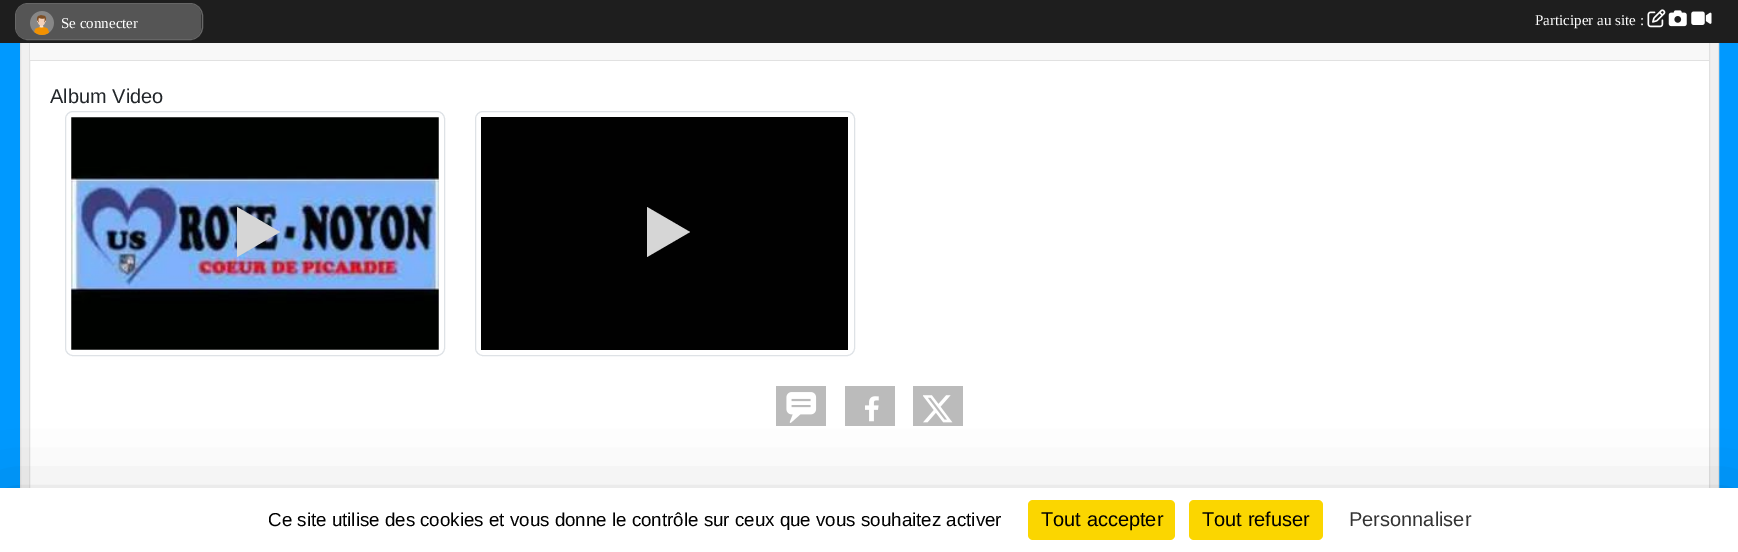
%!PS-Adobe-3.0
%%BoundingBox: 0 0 1738 552
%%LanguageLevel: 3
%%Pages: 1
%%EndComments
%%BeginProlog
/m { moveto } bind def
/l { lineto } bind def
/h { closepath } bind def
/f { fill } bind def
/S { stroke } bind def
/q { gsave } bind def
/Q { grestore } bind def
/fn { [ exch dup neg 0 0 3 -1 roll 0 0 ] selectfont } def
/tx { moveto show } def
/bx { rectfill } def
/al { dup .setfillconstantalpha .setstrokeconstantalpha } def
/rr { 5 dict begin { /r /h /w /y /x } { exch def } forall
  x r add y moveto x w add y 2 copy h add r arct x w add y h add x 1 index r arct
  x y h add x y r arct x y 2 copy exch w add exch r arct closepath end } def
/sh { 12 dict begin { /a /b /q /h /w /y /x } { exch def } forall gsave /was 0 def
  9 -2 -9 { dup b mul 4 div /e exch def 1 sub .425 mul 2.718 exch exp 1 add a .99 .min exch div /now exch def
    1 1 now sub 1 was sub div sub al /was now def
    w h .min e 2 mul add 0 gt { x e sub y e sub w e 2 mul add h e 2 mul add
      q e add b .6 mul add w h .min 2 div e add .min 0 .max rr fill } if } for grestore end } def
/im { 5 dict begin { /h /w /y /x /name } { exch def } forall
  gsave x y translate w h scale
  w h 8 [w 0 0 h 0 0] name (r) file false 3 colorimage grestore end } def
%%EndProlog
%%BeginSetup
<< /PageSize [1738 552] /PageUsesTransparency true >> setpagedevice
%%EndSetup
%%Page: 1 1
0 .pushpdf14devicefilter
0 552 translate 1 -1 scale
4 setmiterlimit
0 0.6 1 setrgbcolor
0 0 1738 552 bx
0.941 setgray
21 43 1697 445 bx
0.882 setgray
20.5 -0.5 1698 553 rectstroke
1 setgray
30 61 1679 427 bx
0.882 setgray
29.5 -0.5 1680 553 rectstroke
0.118 setgray
0 0 1738 43 bx
0.2 setgray
15.5 3.5 187 36 12.5 rr q f Q
0.4 setgray
S
0.333 setgray
16 4 185 35 11 rr f
(image0.raw) 30 11 24 24 im
/LiberationSerif-Regular 15 fn
1 setgray
(Se connecter) 61 28 tx
(Participer au site :) 1535 25 tx
(image1.raw) 1647 9 19 19 im
(image2.raw) 1668 10 19 17 im
(image3.raw) 1691 11 21 14 im
0.973 setgray
30 43 1679 17 bx
0.882 setgray
30 60 1679 1 bx
/LiberationSans-Regular 20 fn
0.129 0.145 0.161 setrgbcolor
(Album Video) 50 103 tx
0.871 0.886 0.902 setrgbcolor
65.5 111.5 379 244 7.5 rr S
(image4.raw) 71 117 368 233 im
0.839 setgray
280 232 m 237 207 l 237 257 l h f
0.871 0.886 0.902 setrgbcolor
475.5 111.5 379 244 7.5 rr S
0.004 setgray
481 117 367 233 bx
0.839 setgray
690 232 m 647 207 l 647 257 l h f
0.733 setgray
776 386 50 40 bx
(image5.raw) 786 392 31 31 im
845 386 50 40 bx
(image6.raw) 865 396 14 26 im
913 386 50 40 bx
(image7.raw) 923 395 30 28 im
0 setgray
0 513 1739 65 0 37.5 0.25 sh
1 setgray
0 488 1738 64 bx
/LiberationSans-Regular 18.75 fn
0 setgray
(Ce site utilise des cookies et vous donne le contrôle sur ceux que vous souhaitez activer) 268 526 tx
0.984 0.839 0 setrgbcolor
1028 500 147 40 5 rr f
/LiberationSans-Regular 20 fn
0 setgray
(Tout accepter) 1041 526 tx
0.984 0.839 0 setrgbcolor
1189 500 134 40 5 rr f
0 setgray
(Tout refuser) 1202 526 tx
0.2 setgray
(Personnaliser) 1349 526 tx
.poppdf14devicefilter showpage
%%EOF
